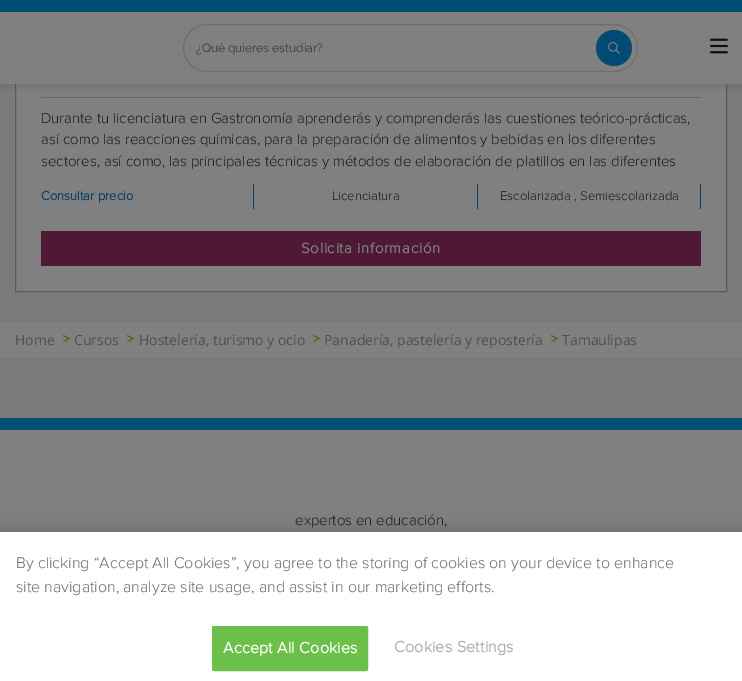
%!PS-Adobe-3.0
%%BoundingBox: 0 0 742 681
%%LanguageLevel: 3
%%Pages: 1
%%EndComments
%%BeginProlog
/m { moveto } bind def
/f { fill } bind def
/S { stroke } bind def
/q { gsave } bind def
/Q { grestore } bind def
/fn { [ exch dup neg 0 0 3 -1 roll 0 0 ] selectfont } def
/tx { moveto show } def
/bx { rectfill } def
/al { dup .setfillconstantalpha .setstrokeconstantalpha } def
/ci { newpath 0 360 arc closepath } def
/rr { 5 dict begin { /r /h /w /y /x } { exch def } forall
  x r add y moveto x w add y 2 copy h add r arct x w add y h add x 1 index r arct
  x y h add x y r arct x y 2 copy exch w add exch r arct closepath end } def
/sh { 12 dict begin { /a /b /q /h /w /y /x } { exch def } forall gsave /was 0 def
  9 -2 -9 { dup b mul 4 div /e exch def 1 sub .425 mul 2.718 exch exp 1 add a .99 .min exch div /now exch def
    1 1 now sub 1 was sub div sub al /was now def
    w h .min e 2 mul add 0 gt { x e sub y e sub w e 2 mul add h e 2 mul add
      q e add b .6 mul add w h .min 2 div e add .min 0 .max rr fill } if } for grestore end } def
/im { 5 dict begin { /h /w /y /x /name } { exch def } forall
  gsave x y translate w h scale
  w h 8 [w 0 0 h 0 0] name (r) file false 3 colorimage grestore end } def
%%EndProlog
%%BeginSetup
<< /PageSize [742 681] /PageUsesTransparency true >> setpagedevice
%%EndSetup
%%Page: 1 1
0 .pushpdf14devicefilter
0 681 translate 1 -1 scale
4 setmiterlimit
0.482 setgray
0 0 742 681 bx
0.502 setgray
16 84 710 207 bx
0.353 setgray
15.5 -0.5 711 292 rectstroke
0.4 setgray
41 97 660 1 bx
0.047 0.047 0.11 setrgbcolor
-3 -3 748 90 0 5 0.12 sh
0.502 setgray
0 12 742 72 bx
0 0.294 0.451 setrgbcolor
0 0 742 12 bx
0.427 setgray
183.5 24.5 454 47 23.5 rr S
/Raleway-Regular 12 fn
0.231 setgray
(¿Qué quieres estudiar?) 196 52 tx
0 0.294 0.451 setrgbcolor
614 48 18 ci f
(image0.raw) 608 42 12 12 im
(image1.raw) 710 38 18 16 im
/ProximaNova-Light 15 fn
0.102 setgray
(Durante tu licenciatura en Gastronomía aprenderás y comprenderás las cuestiones teórico-prácticas,) 41 123 tx
(así como las reacciones químicas, para la preparación de alimentos y bebidas en los diferentes) 41 144 tx
(sectores, así como, las principales técnicas y métodos de elaboración de platillos en las diferentes) 41 166 tx
/ProximaNova-Bold 13 fn
0.012 0.243 0.388 setrgbcolor
(Consultar precio) 41 200 tx
253 184 1 25 bx
/ProximaNova-Light 13 fn
0.102 setgray
(Licenciatura) 332 200 tx
0.012 0.243 0.388 setrgbcolor
477 184 1 25 bx
0.102 setgray
(Escolarizada , Semiescolarizada) 500 200 tx
0.012 0.243 0.388 setrgbcolor
700 184 1 25 bx
0.31 0.094 0.204 setrgbcolor
41 231 660 35 bx
/ProximaNova-Bold 15 fn
0.502 setgray
301 253 m 0.7 0 (Solicita información) ashow
0 322 742 36 bx
/OpenSans-Regular 14 fn
0.31 setgray
(Home) 15 345 tx
/ProximaNova-Bold 13 fn
0.42 0.263 0.012 setrgbcolor
(>) 63 343 tx
/OpenSans-Regular 14 fn
0.31 setgray
(Cursos) 74 345 tx
/ProximaNova-Bold 13 fn
0.42 0.263 0.012 setrgbcolor
(>) 127 343 tx
/OpenSans-Regular 14 fn
0.31 setgray
(Hostelería, turismo y ocio) 139 345 tx
/ProximaNova-Bold 13 fn
0.42 0.263 0.012 setrgbcolor
(>) 313 343 tx
/OpenSans-Regular 14 fn
0.31 setgray
(Panadería, pastelería y repostería) 324 345 tx
/ProximaNova-Bold 13 fn
0.42 0.263 0.012 setrgbcolor
(>) 551 343 tx
/OpenSans-Regular 14 fn
0.31 setgray
(Tamaulipas) 562 345 tx
0.502 setgray
0 430 742 102 bx
0 0.314 0.447 setrgbcolor
0 418 742 12 bx
/ProximaNova-Light 15 fn
0.102 setgray
(expertos en educación,) 295 525 tx
0 setgray
0 532 742 149 0 9 0.2 sh
1 setgray
0 532 742 149 bx
/ProximaNova-Light 16 fn
0.412 setgray
(By clicking “Accept All Cookies”, you agree to the storing of cookies on your device to enhance) 16 568 tx
(site navigation, analyze site usage, and assist in our marketing efforts.) 16 592 tx
0.424 0.753 0.29 setrgbcolor
212.5 626.5 155 44 1.5 rr q f Q
S
/ProximaNova-Bold 16 fn
1 setgray
223 653 m 0.2 0 (Accept All Cookies) ashow
0.702 0.694 0.694 setrgbcolor
394 652 m 0.2 0 (Cookies Settings) ashow
.poppdf14devicefilter showpage
%%EOF
